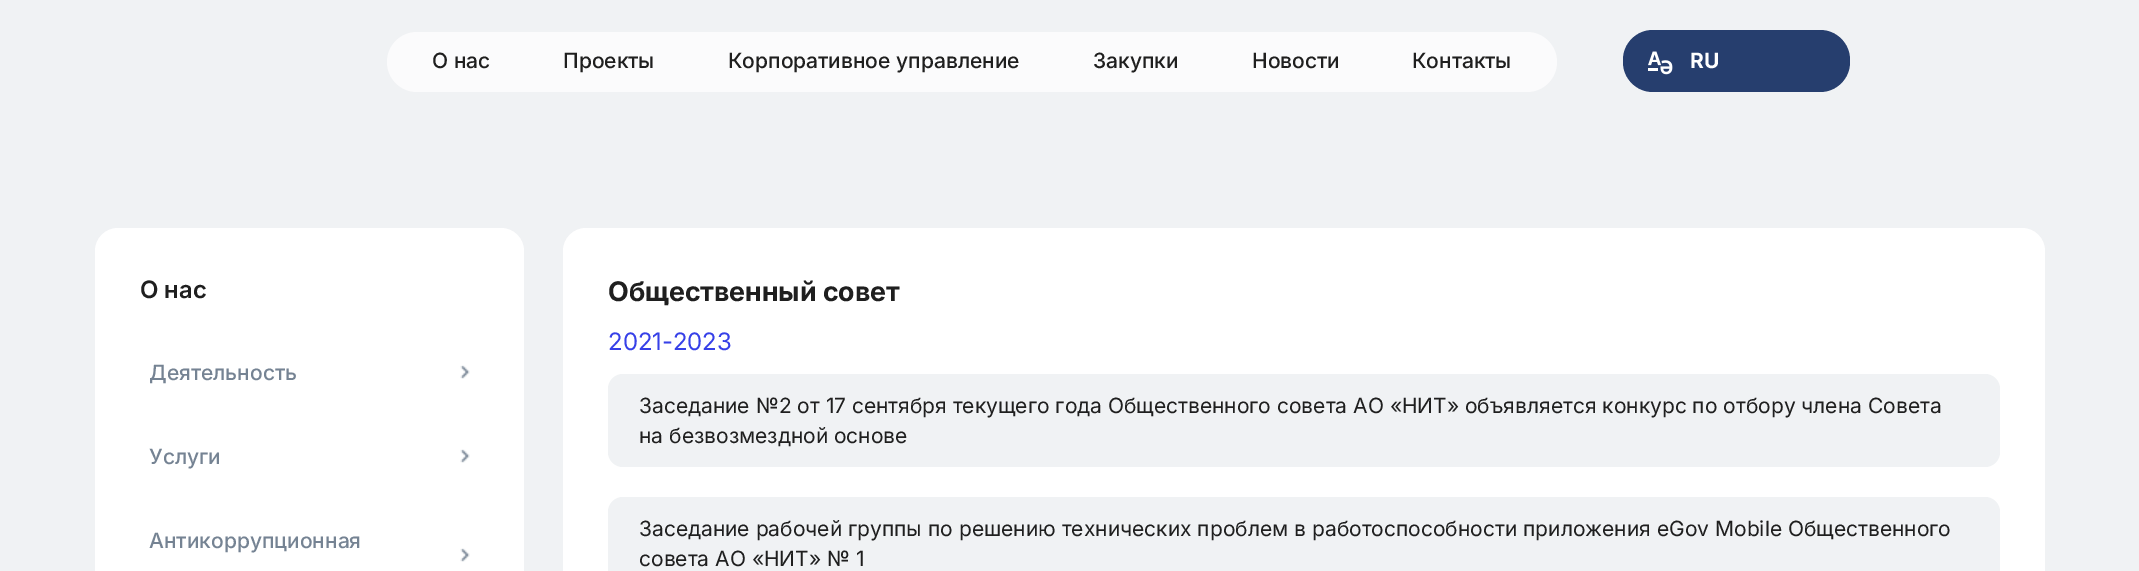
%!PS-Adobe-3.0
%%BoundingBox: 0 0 2139 571
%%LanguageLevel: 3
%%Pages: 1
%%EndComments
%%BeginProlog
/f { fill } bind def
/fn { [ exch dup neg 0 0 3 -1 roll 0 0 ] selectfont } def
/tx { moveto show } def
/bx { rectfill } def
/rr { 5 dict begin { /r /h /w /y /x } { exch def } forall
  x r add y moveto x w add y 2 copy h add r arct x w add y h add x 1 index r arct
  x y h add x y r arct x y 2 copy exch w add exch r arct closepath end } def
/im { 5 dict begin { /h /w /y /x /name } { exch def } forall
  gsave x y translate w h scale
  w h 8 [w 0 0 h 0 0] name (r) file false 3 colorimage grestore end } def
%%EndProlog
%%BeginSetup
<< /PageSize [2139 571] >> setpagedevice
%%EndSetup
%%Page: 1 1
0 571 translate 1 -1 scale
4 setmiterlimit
0.941 0.949 0.957 setrgbcolor
0 0 2139 571 bx
0.984 0.984 0.988 setrgbcolor
387 32 1170 60 30 rr f
/Inter-Medium 21 fn
0.122 setgray
(О нас) 432 68 tx
(Проекты) 563 68 tx
(Корпоративное управление) 728 68 tx
(Закупки) 1093 68 tx
(Новости) 1252 68 tx
(Контакты) 1412 68 tx
0.149 0.243 0.431 setrgbcolor
1623 30 227 62 30 rr f
(image0.raw) 1648 51 25 24 im
/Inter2-Bold 21 fn
1 setgray
(RU) 1690 68 tx
95 228 429 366 23 rr f
/Inter-SemiBold 24 fn
0.122 setgray
(О нас) 140 298 tx
/Inter-Medium 21 fn
0.459 0.514 0.576 setrgbcolor
(Деятельность) 149 380 tx
(image1.raw) 460 365 10 14 im
(Услуги) 149 464 tx
(image1.raw) 460 449 10 14 im
(Антикоррупционная) 149 548 tx
(image1.raw) 460 548 10 14 im
1 setgray
563 228 1482 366 23 rr f
/Inter-Bold 27 fn
0.122 setgray
(Общественный совет) 608 301 tx
/Inter-Regular 24 fn
0.212 0.251 0.91 setrgbcolor
(2021-2023) 608 350 tx
0.941 0.949 0.957 setrgbcolor
608 374 1392 93 15 rr f
/Inter2-Regular 21 fn
0.122 setgray
(Заседание №2 от 17 сентября текущего года Общественного совета АО «НИТ» объявляется конкурс по отбору члена Совета) 639 413 tx
(на безвозмездной основе) 639 443 tx
0.941 0.949 0.957 setrgbcolor
608 497 1392 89 15 rr f
0.122 setgray
(Заседание рабочей группы по решению технических проблем в работоспособности приложения eGov Mobile Общественного) 639 536 tx
(совета АО «НИТ» № 1) 639 566 tx
showpage
%%EOF
